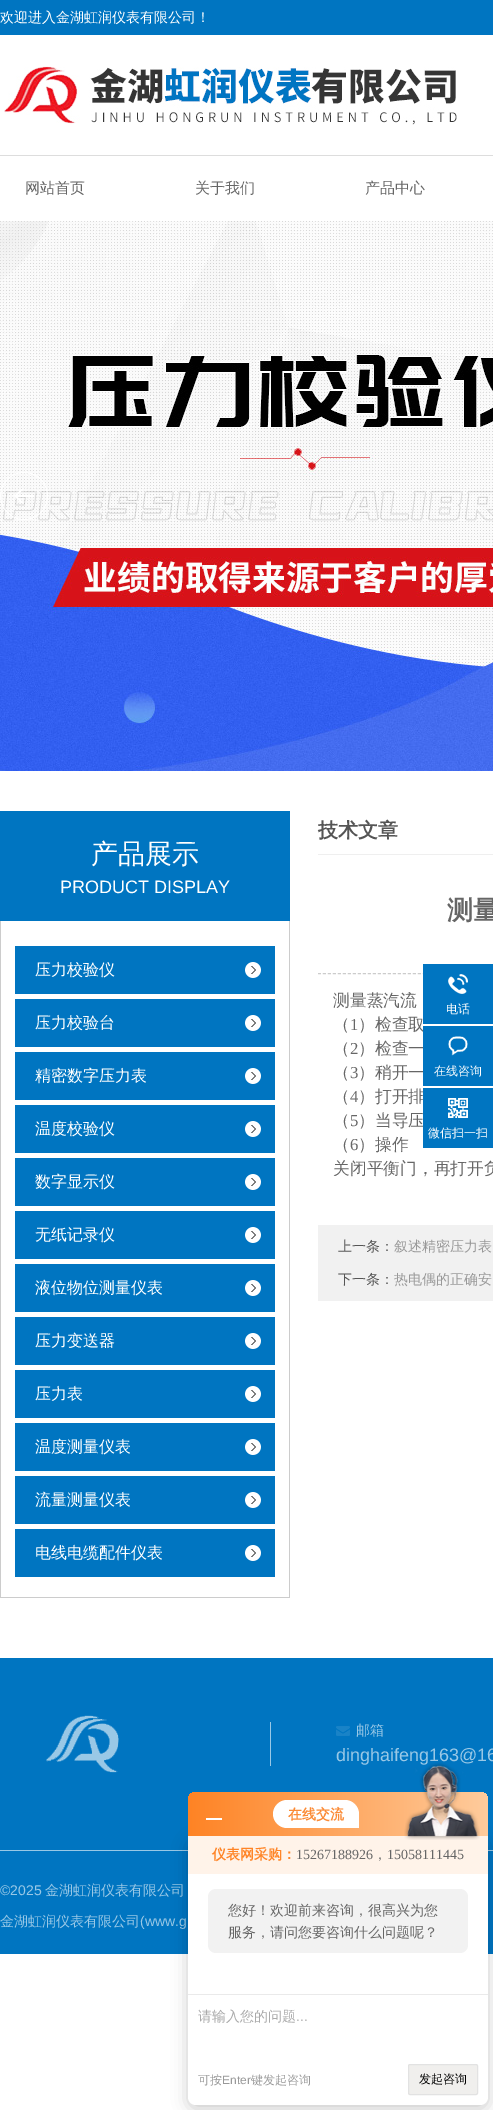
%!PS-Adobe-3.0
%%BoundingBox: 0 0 493 2110
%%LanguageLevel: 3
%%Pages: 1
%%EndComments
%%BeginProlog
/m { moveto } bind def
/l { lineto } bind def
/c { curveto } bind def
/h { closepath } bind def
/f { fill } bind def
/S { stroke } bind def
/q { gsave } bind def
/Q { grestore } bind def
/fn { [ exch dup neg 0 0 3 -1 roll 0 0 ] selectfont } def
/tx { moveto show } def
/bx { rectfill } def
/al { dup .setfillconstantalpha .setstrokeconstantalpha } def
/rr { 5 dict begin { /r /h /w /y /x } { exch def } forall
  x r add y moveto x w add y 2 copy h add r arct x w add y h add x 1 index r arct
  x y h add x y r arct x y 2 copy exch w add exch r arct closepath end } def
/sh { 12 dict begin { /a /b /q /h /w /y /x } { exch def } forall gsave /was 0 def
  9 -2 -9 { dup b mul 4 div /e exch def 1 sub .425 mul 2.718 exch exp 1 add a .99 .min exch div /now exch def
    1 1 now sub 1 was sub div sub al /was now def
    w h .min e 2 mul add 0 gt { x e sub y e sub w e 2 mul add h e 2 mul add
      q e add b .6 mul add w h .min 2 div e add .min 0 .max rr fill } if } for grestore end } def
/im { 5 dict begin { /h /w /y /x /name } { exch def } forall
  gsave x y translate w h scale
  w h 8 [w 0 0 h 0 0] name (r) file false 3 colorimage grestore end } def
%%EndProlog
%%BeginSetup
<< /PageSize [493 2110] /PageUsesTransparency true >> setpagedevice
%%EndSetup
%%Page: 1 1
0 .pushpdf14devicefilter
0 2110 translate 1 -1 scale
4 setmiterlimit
1 setgray
0 0 493 2110 bx
0 0.459 0.757 setrgbcolor
0 0 493 35 bx
/WenQuanYiZenHei-Medium 14 fn
1 setgray
(欢迎进入金湖虹润仪表有限公司！) 0 22 tx
(image0.raw) 4 66 453 59 im
0.867 setgray
0 155 493 1 bx
/WenQuanYiZenHei-Medium 15 fn
0.4 setgray
(网站首页) 25 193 tx
(关于我们) 195 193 tx
(产品中心) 365 193 tx
(image1.raw) 0 221 493 550 im
(image2.raw) 0 472 48 48 im
0 0.459 0.757 setrgbcolor
0 811 290 110 bx
/WenQuanYiZenHei-Medium 27 fn
1 setgray
(产品展示) 91 863 tx
/LiberationSans-Regular 18 fn
(PRODUCT DISPLAY) 60 893 tx
0.8 setgray
289 921 1 677 bx
0 1597 290 1 bx
0 921 1 677 bx
0 0.459 0.757 setrgbcolor
15 946 260 48 bx
(image3.raw) 245 962 16 16 im
/WenQuanYiZenHei-Medium 16 fn
1 setgray
(压力校验仪) 35 975 tx
0 0.459 0.757 setrgbcolor
15 999 260 48 bx
(image3.raw) 245 1015 16 16 im
1 setgray
(压力校验台) 35 1028 tx
0 0.459 0.757 setrgbcolor
15 1052 260 48 bx
(image3.raw) 245 1068 16 16 im
1 setgray
(精密数字压力表) 35 1081 tx
0 0.459 0.757 setrgbcolor
15 1105 260 48 bx
(image3.raw) 245 1121 16 16 im
1 setgray
(温度校验仪) 35 1134 tx
0 0.459 0.757 setrgbcolor
15 1158 260 48 bx
(image3.raw) 245 1174 16 16 im
1 setgray
(数字显示仪) 35 1187 tx
0 0.459 0.757 setrgbcolor
15 1211 260 48 bx
(image3.raw) 245 1227 16 16 im
1 setgray
(无纸记录仪) 35 1240 tx
0 0.459 0.757 setrgbcolor
15 1264 260 48 bx
(image3.raw) 245 1280 16 16 im
1 setgray
(液位物位测量仪表) 35 1293 tx
0 0.459 0.757 setrgbcolor
15 1317 260 48 bx
(image3.raw) 245 1333 16 16 im
1 setgray
(压力变送器) 35 1346 tx
0 0.459 0.757 setrgbcolor
15 1370 260 48 bx
(image3.raw) 245 1386 16 16 im
1 setgray
(压力表) 35 1399 tx
0 0.459 0.757 setrgbcolor
15 1423 260 48 bx
(image3.raw) 245 1439 16 16 im
1 setgray
(温度测量仪表) 35 1452 tx
0 0.459 0.757 setrgbcolor
15 1476 260 48 bx
(image3.raw) 245 1492 16 16 im
1 setgray
(流量测量仪表) 35 1505 tx
0 0.459 0.757 setrgbcolor
15 1529 260 48 bx
(image3.raw) 245 1545 16 16 im
1 setgray
(电线电缆配件仪表) 35 1558 tx
0.937 setgray
318 854 175 1 bx
/WenQuanYiZenHei-Bold 20 fn
0.333 setgray
(技术文章) 318 837 tx
/WenQuanYiZenHei-Bold 26 fn
0.4 setgray
(测量) 447 919 tx
0.8 setgray
[3 1.99] 0 setdash
318 973.5 m 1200 973.5 l S
/WenQuanYiZenHei-Medium 16.75 fn
0.4 setgray
(测量蒸汽流) 333 1006 tx
(（) 333 1030 tx
/LiberationSerif-Regular 16.75 fn
(1) 350 1030 tx
/WenQuanYiZenHei-Medium 16.75 fn
(）检查取) 358 1030 tx
(（) 333 1054 tx
/LiberationSerif-Regular 16.75 fn
(2) 350 1054 tx
/WenQuanYiZenHei-Medium 16.75 fn
(）检查一) 358 1054 tx
(（) 333 1078 tx
/LiberationSerif-Regular 16.75 fn
(3) 350 1078 tx
/WenQuanYiZenHei-Medium 16.75 fn
(）稍开一) 358 1078 tx
(（) 333 1102 tx
/LiberationSerif-Regular 16.75 fn
(4) 350 1102 tx
/WenQuanYiZenHei-Medium 16.75 fn
(）打开排) 358 1102 tx
(（) 333 1126 tx
/LiberationSerif-Regular 16.75 fn
(5) 350 1126 tx
/WenQuanYiZenHei-Medium 16.75 fn
(）当导压) 358 1126 tx
(（) 333 1150 tx
/LiberationSerif-Regular 16.75 fn
(6) 350 1150 tx
/WenQuanYiZenHei-Medium 16.75 fn
(）操作) 358 1150 tx
(关闭平衡门，再打开负) 333 1174 tx
0.945 setgray
318 1225 175 76 bx
/WenQuanYiZenHei-Medium 14 fn
0.333 setgray
(上一条：) 338 1251 tx
0.6 setgray
(叙述精密压力表) 394 1251 tx
0.333 setgray
(下一条：) 338 1284 tx
0.6 setgray
(热电偶的正确安) 394 1284 tx
0 0.459 0.757 setrgbcolor
423 964 70 60 bx
(image4.raw) 448 974 20 20 im
/WenQuanYiZenHei-Medium 12 fn
1 setgray
(电话) 446 1013 tx
0 0.459 0.757 setrgbcolor
423 1026 70 60 bx
(image5.raw) 448 1036 20 20 im
1 setgray
(在线咨询) 434 1075 tx
0 0.459 0.757 setrgbcolor
423 1088 70 60 bx
(image6.raw) 448 1098 20 20 im
1 setgray
(微信扫一扫) 428 1137 tx
0 0.459 0.757 setrgbcolor
0 1658 493 296 bx
(image7.raw) 46 1715 73 58 im
0.6 0.784 0.902 setrgbcolor
270 1722 1 44 bx
(image8.raw) 336 1726 14 10 im
/WenQuanYiZenHei-Medium 14 fn
(邮箱) 356 1735 tx
/LiberationSans-Regular 18 fn
(dinghaifeng163@16) 336 1761 tx
0 1850 493 1 bx
/LiberationSans-Regular 14 fn
(©2025) 0 1895 tx
/WenQuanYiZenHei-Medium 14 fn
(金湖虹润仪表有限公司) 45 1895 tx
(金湖虹润仪表有限公司) 0 1926 tx
/LiberationSans-Regular 14 fn
(\(www.g) 140 1926 tx
0 setgray
188 1840 300 269 8 8 0.2 sh
q 196 1792 m 480 1792 l 484.5 1792 488 1795.5 488 1800 c 488 1836 l 188 1836 l 188 1800 l 188 1795.5 191.5 1792 196 1792 c h clip newpath
<< /ShadingType 2 /ColorSpace /DeviceRGB /Coords [188 1814 488 1814] /Extend [true true] /Function << /FunctionType 2 /Domain [0 1] /C0 [1 0.514 0.141] /C1 [0.996 0.796 0.612] /N 1 >> >> shfill Q
1 setgray
206 1818 16 2 bx
287 1800 m 345 1800 l 352.5 1800 359 1806.5 359 1814 c 359 1828 l 287 1828 l 279.5 1828 273 1821.5 273 1814 c 273 1806.5 279.5 1800 287 1800 c h f
/WenQuanYiZenHei-Bold 14 fn
0.984 0.545 0.212 setrgbcolor
(在线交流) 288 1819 tx
1 setgray
188 1836 m 488 1836 l 488 2097 l 488 2101.5 484.5 2105 480 2105 c 196 2105 l 191.5 2105 188 2101.5 188 2097 c h f
1 0.953 0.914 setrgbcolor
188 1836 300 38 bx
(image9.raw) 404 1762 76 78 im
1 0.518 0.149 setrgbcolor
(仪表网采购：) 212 1859 tx
/LiberationSerif-Regular 14 fn
0.4 setgray
(15267188926) 296 1859 tx
/WenQuanYiZenHei-Medium 14 fn
(，) 373 1859 tx
/LiberationSerif-Regular 14 fn
(15058111445) 387 1859 tx
0.949 setgray
208 1889 260 64 8 rr f
/WenQuanYiZenHei-Medium 14 fn
0.4 setgray
(您好！欢迎前来咨询，很高兴为您) 228 1915 tx
(服务，请问您要咨询什么问题呢？) 228 1937 tx
0.918 setgray
188 1994 300 1 bx
0.667 setgray
(请输入您的问题) 198 2021 tx
/LiberationSans-Regular 14 fn
(...) 296 2021 tx
/WenQuanYiZenHei-Medium 12 fn
0.6 setgray
(可按) 198 2084 tx
/LiberationSans-Regular 12 fn
(Enter) 222 2084 tx
/WenQuanYiZenHei-Medium 12 fn
(键发起咨询) 251 2084 tx
0.941 0.937 0.929 setrgbcolor
408.5 2064.5 69 30 1.5 rr q f Q
0.886 setgray
[] 0 setdash
S
0 setgray
(发起咨询) 419 2083 tx
.poppdf14devicefilter showpage
%%EOF
